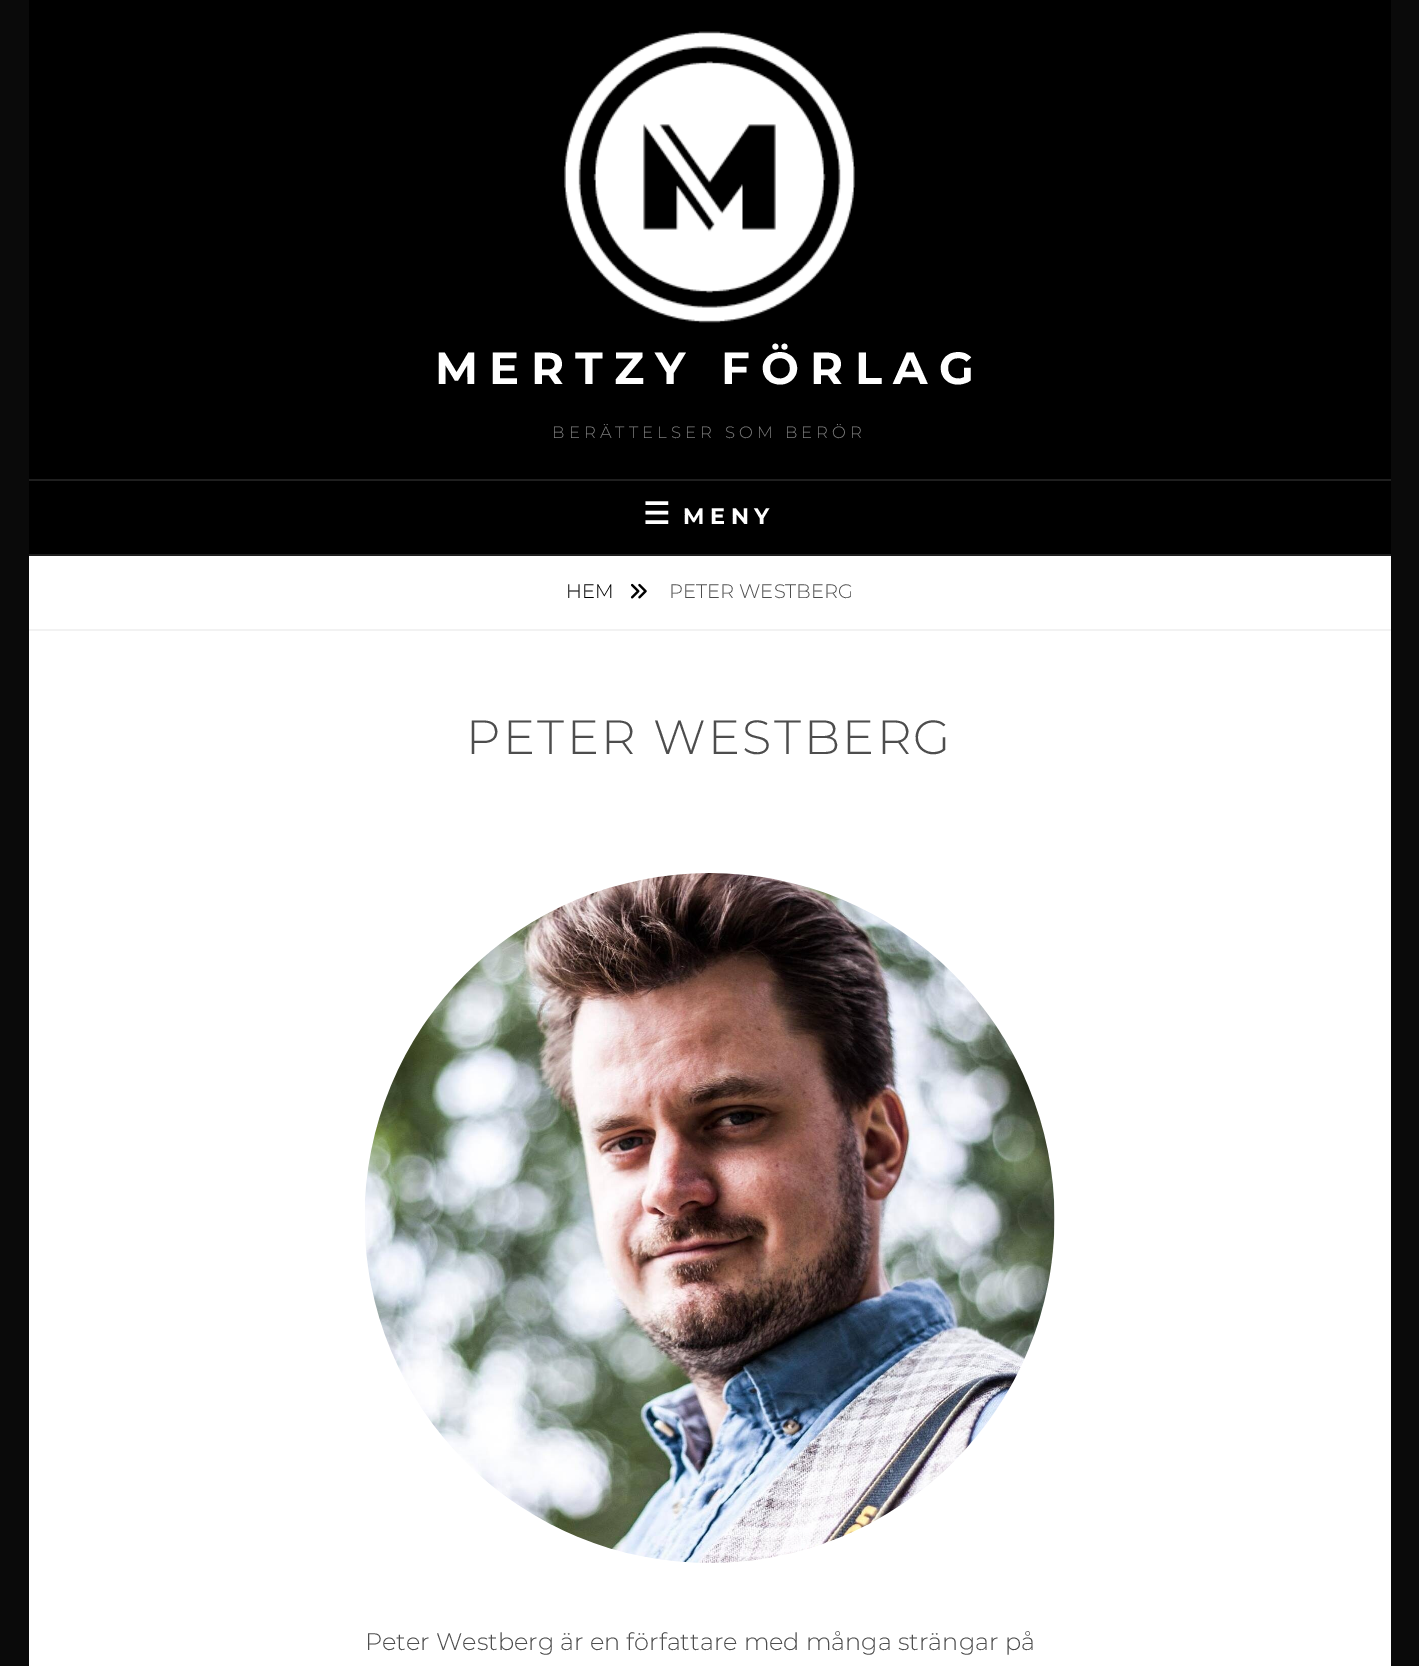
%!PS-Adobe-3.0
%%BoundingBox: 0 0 1419 1666
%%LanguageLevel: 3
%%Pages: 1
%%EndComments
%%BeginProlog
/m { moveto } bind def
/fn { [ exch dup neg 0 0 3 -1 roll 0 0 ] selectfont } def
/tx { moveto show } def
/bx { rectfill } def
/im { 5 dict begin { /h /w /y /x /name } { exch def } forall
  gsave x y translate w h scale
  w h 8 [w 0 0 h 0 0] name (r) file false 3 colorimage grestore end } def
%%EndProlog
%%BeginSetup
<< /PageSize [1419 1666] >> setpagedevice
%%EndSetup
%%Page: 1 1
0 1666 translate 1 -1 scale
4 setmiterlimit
0.039 setgray
0 0 1419 1666 bx
1 setgray
29 556 1362 1110 bx
0 setgray
29 0 1362 554 bx
(image0.raw) 564 31 291 292 im
/Montserrat-Bold 45 fn
1 setgray
435 384 m 11.25 0 (MERTZY FÖRLAG) ashow
/Montserrat-Light 16.5 fn
0.502 setgray
552 438 m 4.1 0 (BERÄTTELSER SOM BERÖR) ashow
0.122 setgray
29 479 1362 2 bx
/DejaVuSans-Bold 30 fn
1 setgray
643 524 m 5.5 0 (☰) ashow
/Montserrat-Bold 22.5 fn
683 524 m 5.5 0 (MENY) ashow
0.122 setgray
29 554 1362 2 bx
0.949 setgray
29 629 1362 2 bx
/Montserrat-Light 19.5 fn
0 setgray
(HEM) 566 598 tx
(image1.raw) 630 583 17 16 im
0.302 setgray
(PETER WESTBERG) 669 598 tx
/Montserrat-Light 48 fn
466 754 m 2.4 0 (PETER WESTBERG) ashow
(image2.raw) 365 873 690 690 im
/Montserrat-Light 24 fn
(Peter Westberg är en författare med många strängar på) 365 1650 tx
showpage
%%EOF
